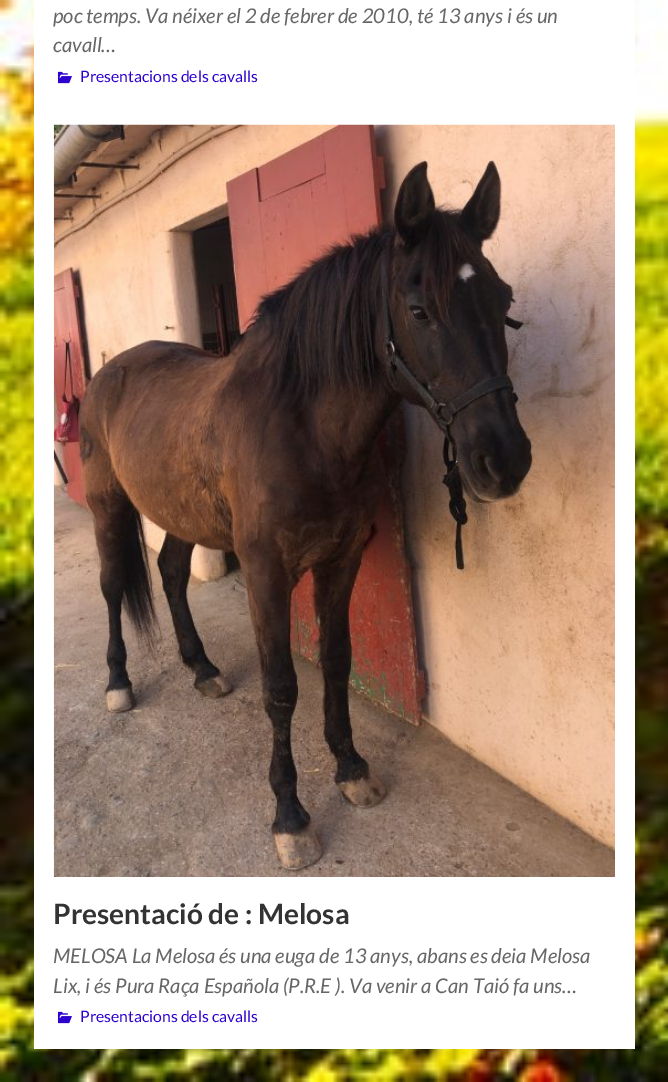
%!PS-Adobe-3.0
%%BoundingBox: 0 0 668 1082
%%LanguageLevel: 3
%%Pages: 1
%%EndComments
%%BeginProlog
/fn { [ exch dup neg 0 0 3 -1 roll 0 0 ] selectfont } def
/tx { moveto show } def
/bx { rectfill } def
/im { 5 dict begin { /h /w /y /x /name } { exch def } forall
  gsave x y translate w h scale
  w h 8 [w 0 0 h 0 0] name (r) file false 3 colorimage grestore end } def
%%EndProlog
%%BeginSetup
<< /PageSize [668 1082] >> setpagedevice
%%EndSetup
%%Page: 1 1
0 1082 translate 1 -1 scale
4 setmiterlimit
1 setgray
0 0 668 1082 bx
(image0.raw) 0 0 668 1082 im
34 0 601 1049 bx
/Lato-Italic 20.25 fn
0.4 setgray
(poc temps. Va néixer el 2 de febrer de 2010, té 13 anys i és un) 53 23 tx
(cavall…) 53 52 tx
(image1.raw) 57 71 15 13 im
/Lato-Regular 15.75 fn
0.18 0.008 0.808 setrgbcolor
(Presentacions dels cavalls) 80 82 tx
(image2.raw) 53 124 562 753 im
/Lato-Bold 28.1 fn
0.2 setgray
(Presentació de : Melosa) 53 924 tx
/Lato-Italic 20.25 fn
0.4 setgray
(MELOSA La Melosa és una euga de 13 anys, abans es deia Melosa) 53 963 tx
(Lix, i és Pura Raça Española \(P.R.E \). Va venir a Can Taió fa uns…) 53 993 tx
(image1.raw) 57 1011 15 13 im
/Lato-Regular 15.75 fn
0.18 0.008 0.808 setrgbcolor
(Presentacions dels cavalls) 80 1022 tx
showpage
%%EOF
